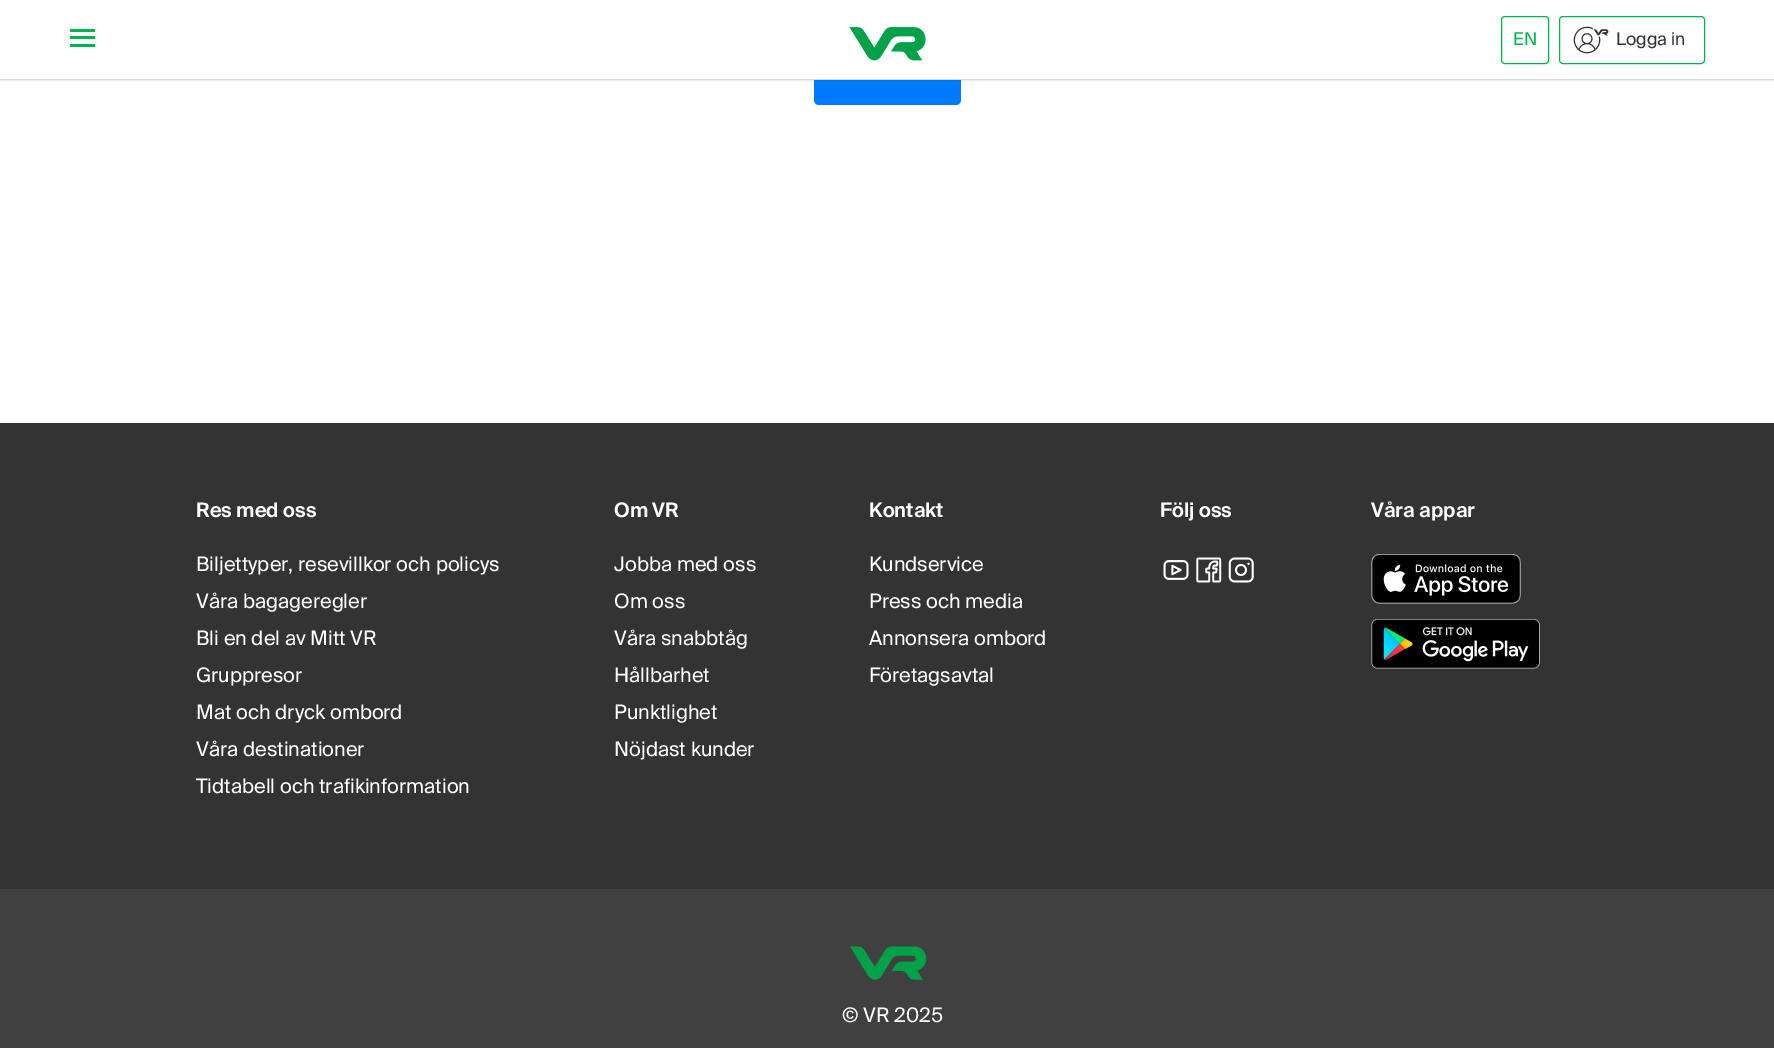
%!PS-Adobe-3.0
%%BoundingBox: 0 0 1774 1048
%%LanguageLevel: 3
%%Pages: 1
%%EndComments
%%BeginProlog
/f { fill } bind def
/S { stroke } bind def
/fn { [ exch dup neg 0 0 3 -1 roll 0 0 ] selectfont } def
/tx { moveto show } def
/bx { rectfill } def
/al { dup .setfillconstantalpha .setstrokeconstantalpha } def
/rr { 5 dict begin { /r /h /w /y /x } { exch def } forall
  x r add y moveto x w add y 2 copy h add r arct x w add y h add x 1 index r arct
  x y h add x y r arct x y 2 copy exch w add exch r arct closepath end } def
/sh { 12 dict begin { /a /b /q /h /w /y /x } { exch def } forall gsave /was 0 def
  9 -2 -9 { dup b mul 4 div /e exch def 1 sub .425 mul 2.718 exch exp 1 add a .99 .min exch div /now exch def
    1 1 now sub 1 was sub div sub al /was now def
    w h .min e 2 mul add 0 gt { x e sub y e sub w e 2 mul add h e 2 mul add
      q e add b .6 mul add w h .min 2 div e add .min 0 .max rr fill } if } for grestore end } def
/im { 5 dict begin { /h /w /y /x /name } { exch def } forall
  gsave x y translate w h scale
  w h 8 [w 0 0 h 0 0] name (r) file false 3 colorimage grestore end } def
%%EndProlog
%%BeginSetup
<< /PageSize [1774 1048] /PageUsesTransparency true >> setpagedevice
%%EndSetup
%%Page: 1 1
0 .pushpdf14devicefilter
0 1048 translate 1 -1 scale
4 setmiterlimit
1 setgray
0 0 1774 1048 bx
0 0.482 1 setrgbcolor
814 56 147 49 5 rr f
0 setgray
0 1 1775 80 0 1 0.1 sh
1 setgray
0 0 1774 79 bx
0.847 setgray
0 79 1774 1 bx
0 0.706 0.318 setrgbcolor
70 29 25 3 bx
70 36 25 3 bx
70 44 25 3 bx
(image0.raw) 849 27 77 34 im
1501.5 16.5 47 47 3.5 rr S
/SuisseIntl-Regular 17.5 fn
(EN) 1513 45 tx
1559.5 16.5 145 47 3.5 rr S
(image1.raw) 1573 26 36 28 im
0.2 setgray
(Logga in) 1616 45 tx
0 423 1774 466 bx
/SuisseIntl-SemiBold 20 fn
1 setgray
(Res med oss) 196 517 tx
/SuisseIntl-Regular 20 fn
(Biljettyper, resevillkor och policys) 196 571 tx
(Våra bagageregler) 196 608 tx
(Bli en del av Mitt VR) 196 645 tx
(Gruppresor) 196 682 tx
(Mat och dryck ombord) 196 719 tx
(Våra destinationer) 196 756 tx
(Tidtabell och trafikinformation) 196 793 tx
/SuisseIntl-SemiBold 20 fn
(Om VR) 614 517 tx
/SuisseIntl-Regular 20 fn
(Jobba med oss) 614 571 tx
(Om oss) 614 608 tx
(Våra snabbtåg) 614 645 tx
(Hållbarhet) 614 682 tx
(Punktlighet) 614 719 tx
(Nöjdast kunder) 614 756 tx
/SuisseIntl-SemiBold 20 fn
(Kontakt) 869 517 tx
/SuisseIntl-Regular 20 fn
(Kundservice) 869 571 tx
(Press och media) 869 608 tx
(Annonsera ombord) 869 645 tx
(Företagsavtal) 869 682 tx
/SuisseIntl-SemiBold 20 fn
(Följ oss) 1160 517 tx
(image2.raw) 1163 560 26 20 im
(image3.raw) 1196 557 26 26 im
(image4.raw) 1228 557 26 26 im
(Våra appar) 1371 517 tx
(image5.raw) 1371 554 150 50 im
(image6.raw) 1371 619 169 50 im
0.251 setgray
0 889 1774 159 bx
(image7.raw) 850 946 77 34 im
/SuisseIntl-Regular 20 fn
1 setgray
(© VR 2025) 842 1022 tx
.poppdf14devicefilter showpage
%%EOF
